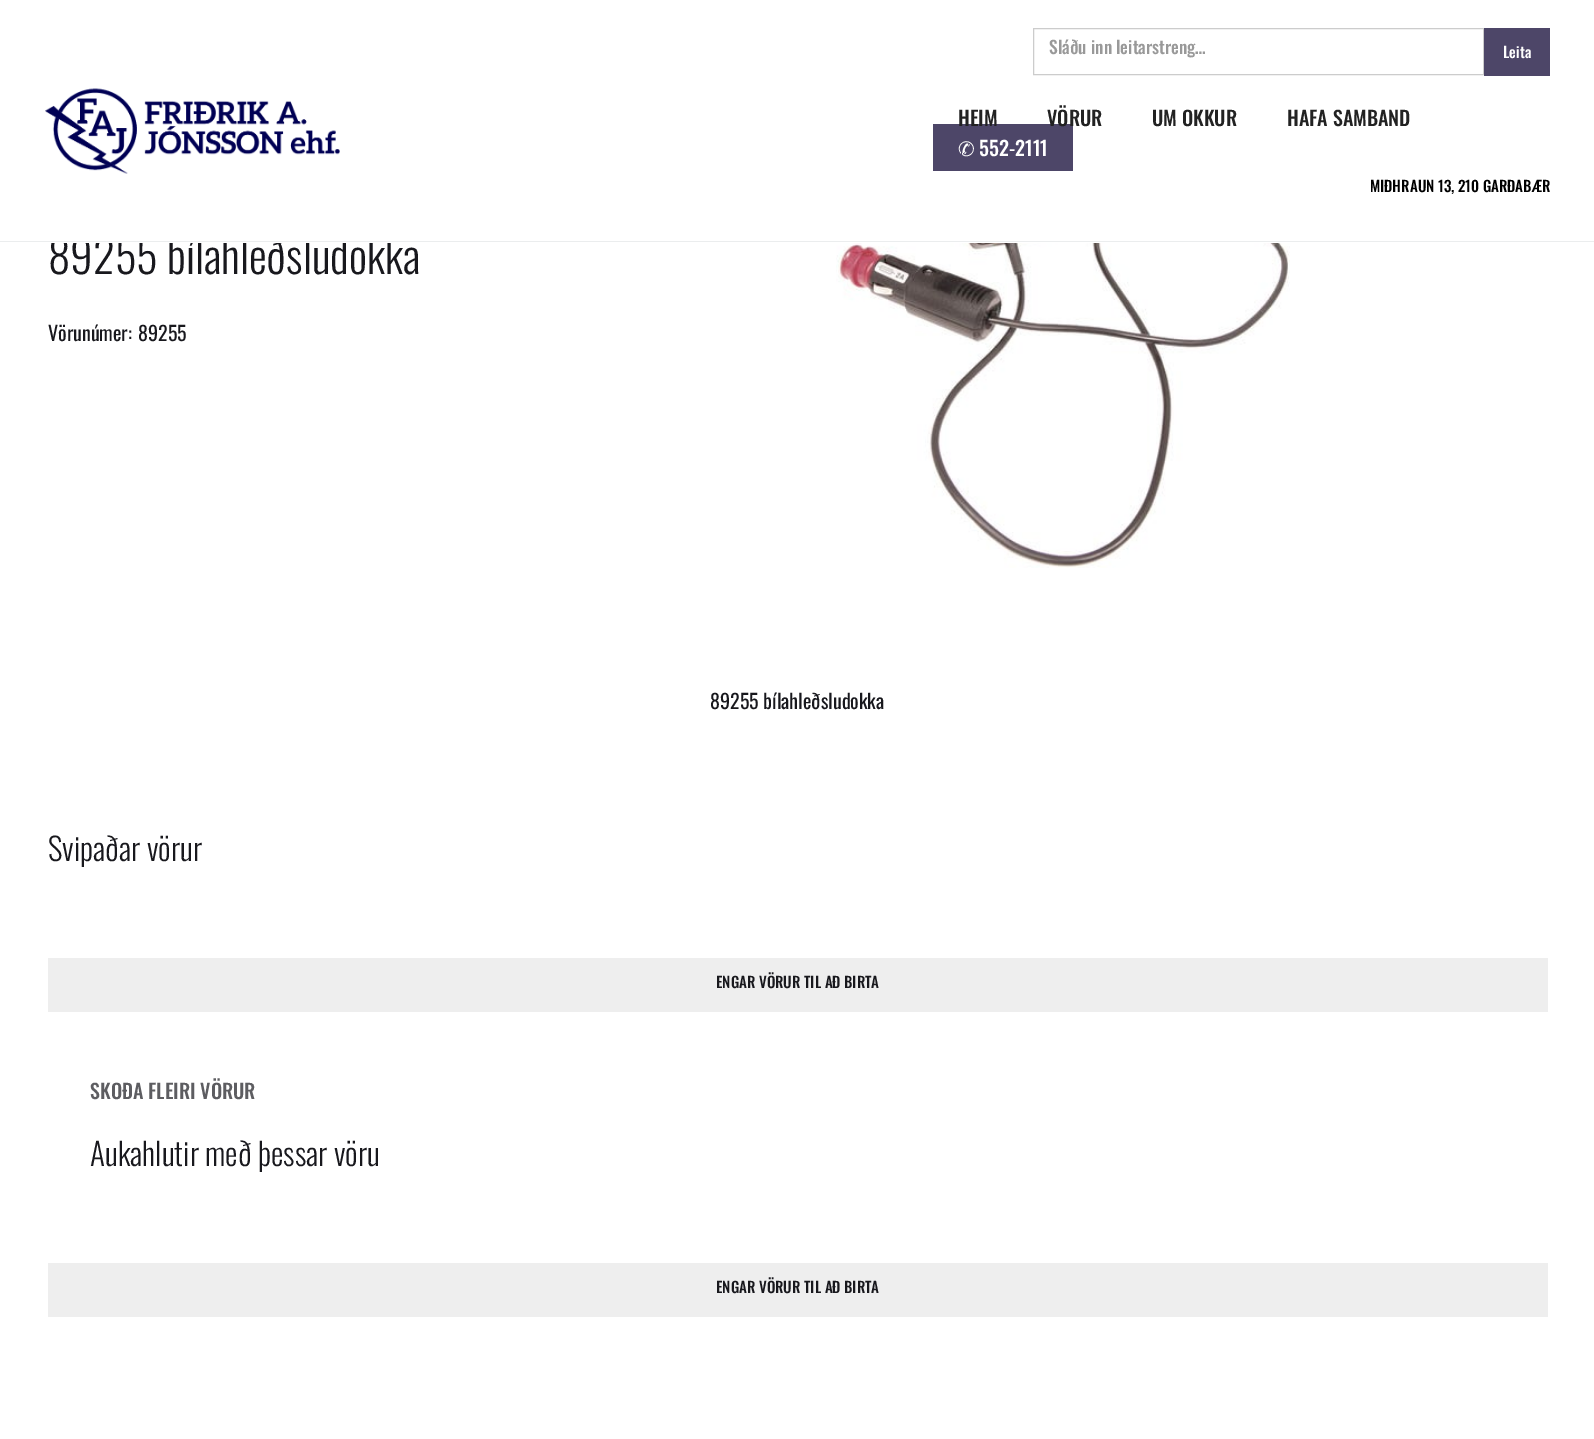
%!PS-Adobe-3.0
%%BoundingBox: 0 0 1594 1439
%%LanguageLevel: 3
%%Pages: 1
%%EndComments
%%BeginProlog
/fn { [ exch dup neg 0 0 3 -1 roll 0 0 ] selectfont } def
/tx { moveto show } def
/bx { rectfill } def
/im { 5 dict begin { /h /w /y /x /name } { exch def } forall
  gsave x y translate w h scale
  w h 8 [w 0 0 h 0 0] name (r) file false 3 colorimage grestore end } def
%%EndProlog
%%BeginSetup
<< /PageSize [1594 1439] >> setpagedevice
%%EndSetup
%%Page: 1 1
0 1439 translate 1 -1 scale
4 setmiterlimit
1 setgray
0 0 1594 1439 bx
/Oswald-Light 45 fn
0.094 0.094 0.114 setrgbcolor
(89255 bílahleðsludokka) 48 274 tx
1 setgray
51 236 340 7 bx
0.922 0.929 0.933 setrgbcolor
0 241 1594 1 bx
0.8 setgray
1033.5 28.5 450 46 rectstroke
/Oswald-Medium 17.5 fn
0.6 setgray
(Sláðu inn leitarstreng…) 1049 54 tx
0.302 0.275 0.408 setrgbcolor
1484 28 66 48 bx
/Oswald-Medium 15 fn
1 setgray
(Leita) 1503 58 tx
(image0.raw) 45 88 295 86 im
0.302 0.275 0.408 setrgbcolor
933 124 140 47 bx
/Oswald-Medium 20 fn
0.133 setgray
(HEIM) 958 126 tx
(VÖRUR) 1047 126 tx
(UM OKKUR) 1152 126 tx
(HAFA SAMBAND) 1287 126 tx
/DejaVuSans-Regular 20 fn
1 setgray
(✆) 958 156 tx
/Oswald-Medium 20 fn
(552-2111) 979 156 tx
/Oswald-Medium 15 fn
0 setgray
(MIÐHRAUN 13, 210 GARÐABÆR) 1370 192 tx
/Oswald-Regular 20 fn
0.094 0.094 0.114 setrgbcolor
(Vörunúmer:) 48 341 tx
(89255) 138 341 tx
(image1.raw) 836 243 454 325 im
(89255 bílahleðsludokka) 710 709 tx
/Oswald-Light 31.25 fn
(Svipaðar vörur) 48 861 tx
0.933 setgray
48 958 1500 54 bx
/Oswald-Medium 15 fn
0.094 0.094 0.114 setrgbcolor
(ENGAR VÖRUR TIL AÐ BIRTA) 716 988 tx
/Oswald-Medium 20 fn
0.365 0.365 0.38 setrgbcolor
(SKOÐA FLEIRI VÖRUR) 90 1099 tx
/Oswald-Light 31.25 fn
0.094 0.094 0.114 setrgbcolor
(Aukahlutir með þessar vöru) 90 1166 tx
0.933 setgray
48 1263 1500 54 bx
/Oswald-Medium 15 fn
0.094 0.094 0.114 setrgbcolor
(ENGAR VÖRUR TIL AÐ BIRTA) 716 1293 tx
showpage
%%EOF
